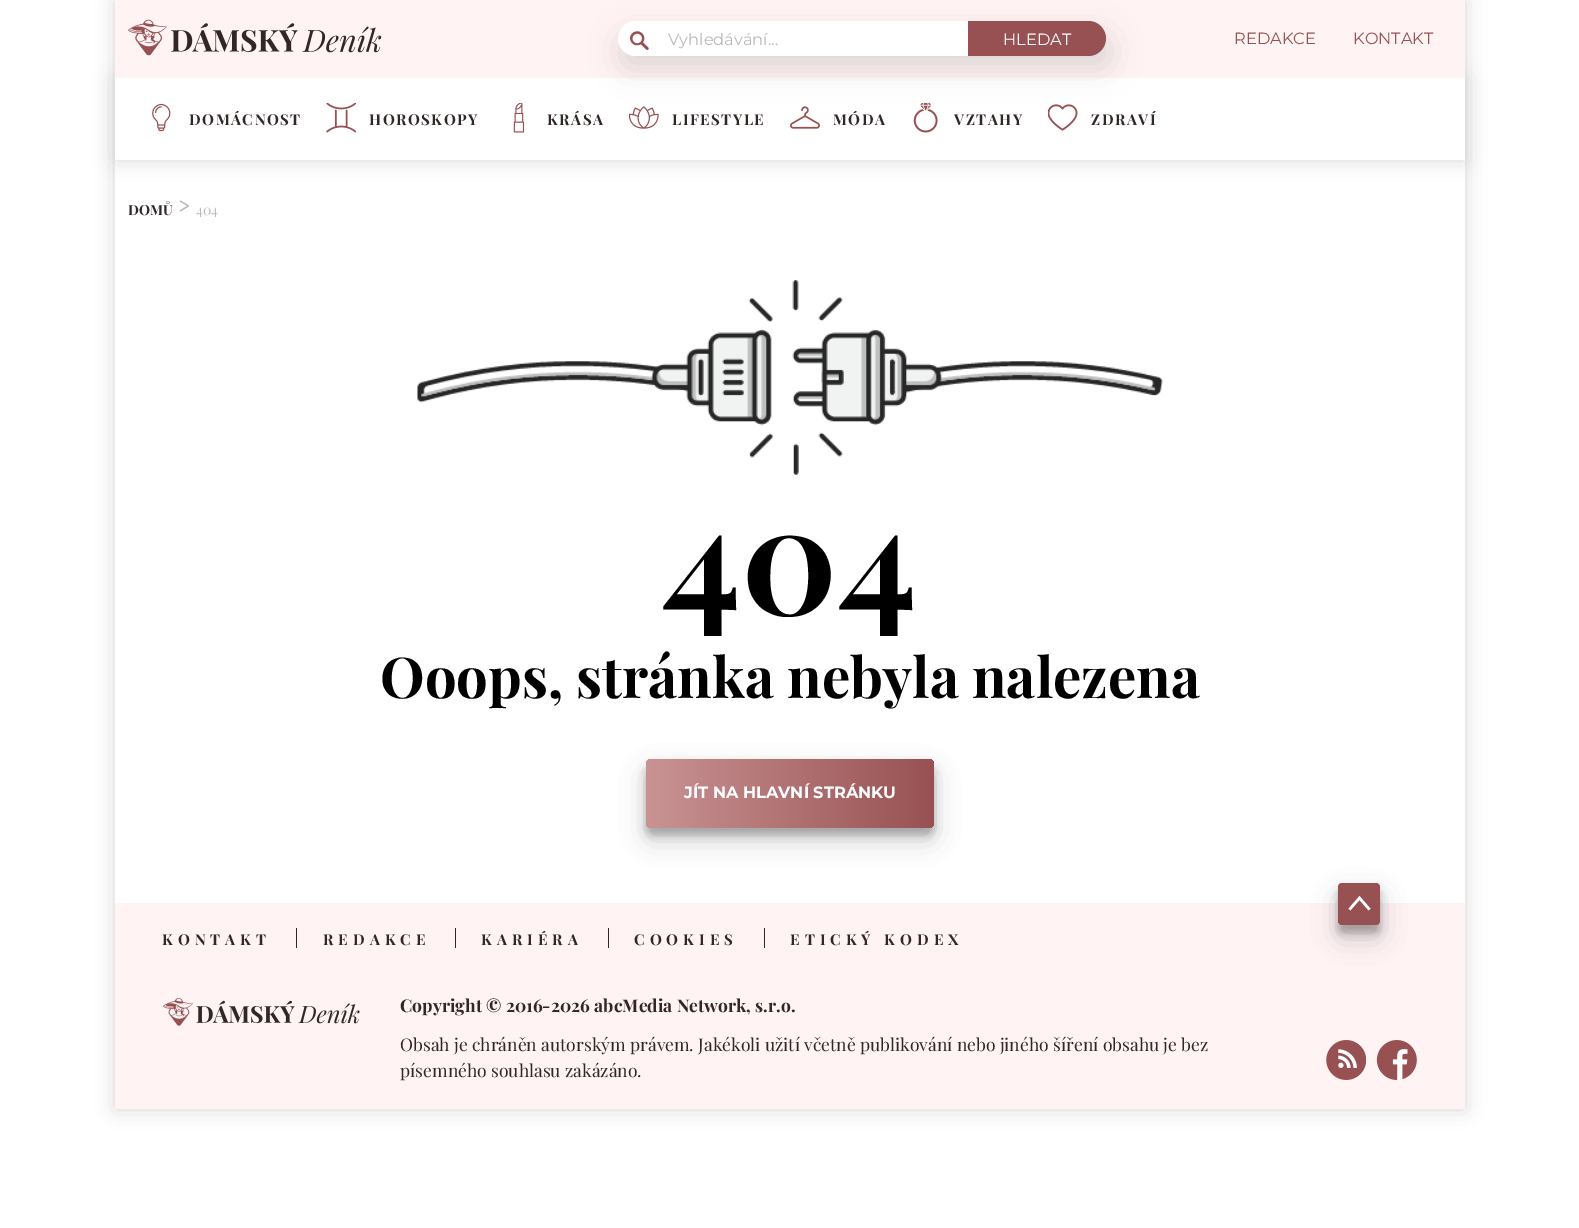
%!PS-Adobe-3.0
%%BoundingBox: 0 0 1579 1228
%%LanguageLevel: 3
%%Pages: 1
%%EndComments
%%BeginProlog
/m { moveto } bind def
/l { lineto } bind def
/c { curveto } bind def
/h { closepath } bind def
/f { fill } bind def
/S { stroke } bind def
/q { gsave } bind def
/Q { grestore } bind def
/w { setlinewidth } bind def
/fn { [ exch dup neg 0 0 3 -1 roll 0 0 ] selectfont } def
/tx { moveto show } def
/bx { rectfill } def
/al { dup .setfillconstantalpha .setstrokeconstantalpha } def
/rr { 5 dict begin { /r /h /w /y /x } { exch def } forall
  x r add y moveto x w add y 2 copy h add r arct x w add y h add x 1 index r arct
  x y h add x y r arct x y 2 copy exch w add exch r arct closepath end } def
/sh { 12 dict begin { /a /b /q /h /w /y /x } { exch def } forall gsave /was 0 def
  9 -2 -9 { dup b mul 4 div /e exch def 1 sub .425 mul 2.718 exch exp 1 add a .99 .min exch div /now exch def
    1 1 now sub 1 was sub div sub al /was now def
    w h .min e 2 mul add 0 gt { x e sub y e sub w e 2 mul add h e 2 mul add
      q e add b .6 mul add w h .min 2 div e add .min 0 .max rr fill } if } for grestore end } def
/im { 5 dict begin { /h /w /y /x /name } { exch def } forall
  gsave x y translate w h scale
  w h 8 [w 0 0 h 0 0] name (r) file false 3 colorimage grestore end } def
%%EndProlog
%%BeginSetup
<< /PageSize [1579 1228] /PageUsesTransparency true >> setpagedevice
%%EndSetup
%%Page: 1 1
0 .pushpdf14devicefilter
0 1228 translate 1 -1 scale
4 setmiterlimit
1 setgray
0 0 1579 1228 bx
0.831 setgray
115 0 1350 1109 0 10 1 sh
1 setgray
115 78 1350 825 bx
q
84 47 m 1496 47 l 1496 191 l 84 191 l h 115 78 m 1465 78 l 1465 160 l 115 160 l h eoclip newpath
0.831 setgray
115 78 1350 82 0 10 1 sh
Q
1 0.953 0.957 setrgbcolor
115 0 1350 78 bx
(image0.raw) 128 19 254 37 im
(image5.raw) 629 106 30 23 im
(image6.raw) 790 106 30 23 im
(image7.raw) 913 103 25 30 im
(image8.raw) 1048 104 30 27 im
0 setgray
621 34 489 35 17.5 15.5 0.12 sh
1 setgray
635.5 21 m 968 21 l 968 56 l 635.5 56 l 626 56 618 48 618 38.5 c 618 29 626 21 635.5 21 c h f
(image1.raw) 630 31 19 19 im
/Montserrat-Regular 16.25 fn
0.725 setgray
(Vyhledávání...) 668 45 tx
0.596 0.318 0.322 setrgbcolor
968 21 m 1088.5 21 l 1098 21 1106 29 1106 38.5 c 1106 48 1098 56 1088.5 56 c 968 56 l h f
1 setgray
(HLEDAT) 1003 45 tx
0.596 0.318 0.322 setrgbcolor
(REDAKCE) 1234 44 tx
(KONTAKT) 1353 44 tx
(image2.raw) 152 103 19 29 im
/PlayfairDisplay-Bold 15 fn
0.192 0.153 0.153 setrgbcolor
189 125 m 1.5 0 (DOMÁCNOST) ashow
(image3.raw) 326 103 30 30 im
369 125 m 1.5 0 (HOROSKOPY) ashow
(image4.raw) 513 103 12 30 im
547 125 m 1.5 0 (KRÁSA) ashow
672 125 m 1.5 0 (LIFESTYLE) ashow
833 125 m 1.5 0 (MÓDA) ashow
954 125 m 1.5 0 (VZTAHY) ashow
1091 125 m 1.5 0 (ZDRAVÍ) ashow
/PlayfairDisplay-Bold 14 fn
(DOMŮ) 128 215 tx
/Comfortaa-Regular 20 fn
0.725 setgray
(>) 179 213 tx
/PlayfairDisplay-Regular 14 fn
(404) 196 215 tx
(image9.raw) 417 280 746 195 im
/PlayfairDisplay-Bold 150 fn
0 setgray
(404) 662 615 tx
/PlayfairDisplay-Bold 56.25 fn
(Ooops, stránka nebyla nalezena) 380 698 tx
646 766 288 69 6 4 0.23 sh
646 771 288 69 6 12.5 0.19 sh
q 646 759 288 69 6 rr clip newpath
<< /ShadingType 2 /ColorSpace /DeviceRGB /Coords [646 793 934 793] /Extend [true true] /Function << /FunctionType 2 /Domain [0 1] /C0 [0.788 0.576 0.58] /C1 [0.596 0.318 0.322] /N 1 >> >> shfill Q
/Montserrat-Bold 16.25 fn
1 setgray
(JÍT NA HLAVNÍ STRÁNKU) 684 798 tx
1 0.953 0.957 setrgbcolor
115 903 1350 206 bx
/PlayfairDisplay-Bold 15 fn
0.192 0.153 0.153 setrgbcolor
162 945 m 5 0 (KONTAKT) ashow
296 928 1 20 bx
323 945 m 5 0 (REDAKCE) ashow
455 928 1 20 bx
481 945 m 5 0 (KARIÉRA) ashow
608 928 1 20 bx
634 945 m 5 0 (COOKIES) ashow
764 928 1 20 bx
790 945 m 5 0 (ETICKÝ KODEX) ashow
0 setgray
1338 890 42 43 4 4 0.23 sh
1338 895 42 43 4 12.5 0.19 sh
0.596 0.318 0.322 setrgbcolor
1338 883 42 42 4 rr f
1 setgray
2.5 w
1349.5 909.5 m 1359.5 898 l 1369.5 909.5 l S
(image10.raw) 163 998 197 28 im
/PlayfairDisplay-Bold 17.5 fn
0.192 0.153 0.153 setrgbcolor
(Copyright © 2016-2026 abcMedia Network, s.r.o.) 400 1012 tx
/PlayfairDisplay-Regular 17.5 fn
(Obsah je chráněn autorským právem. Jakékoli užití včetně publikování nebo jiného šíření obsahu je bez) 400 1051 tx
(písemného souhlasu zakázáno.) 400 1077 tx
(image11.raw) 1326 1040 40 40 im
(image12.raw) 1376 1040 41 40 im
.poppdf14devicefilter showpage
%%EOF
